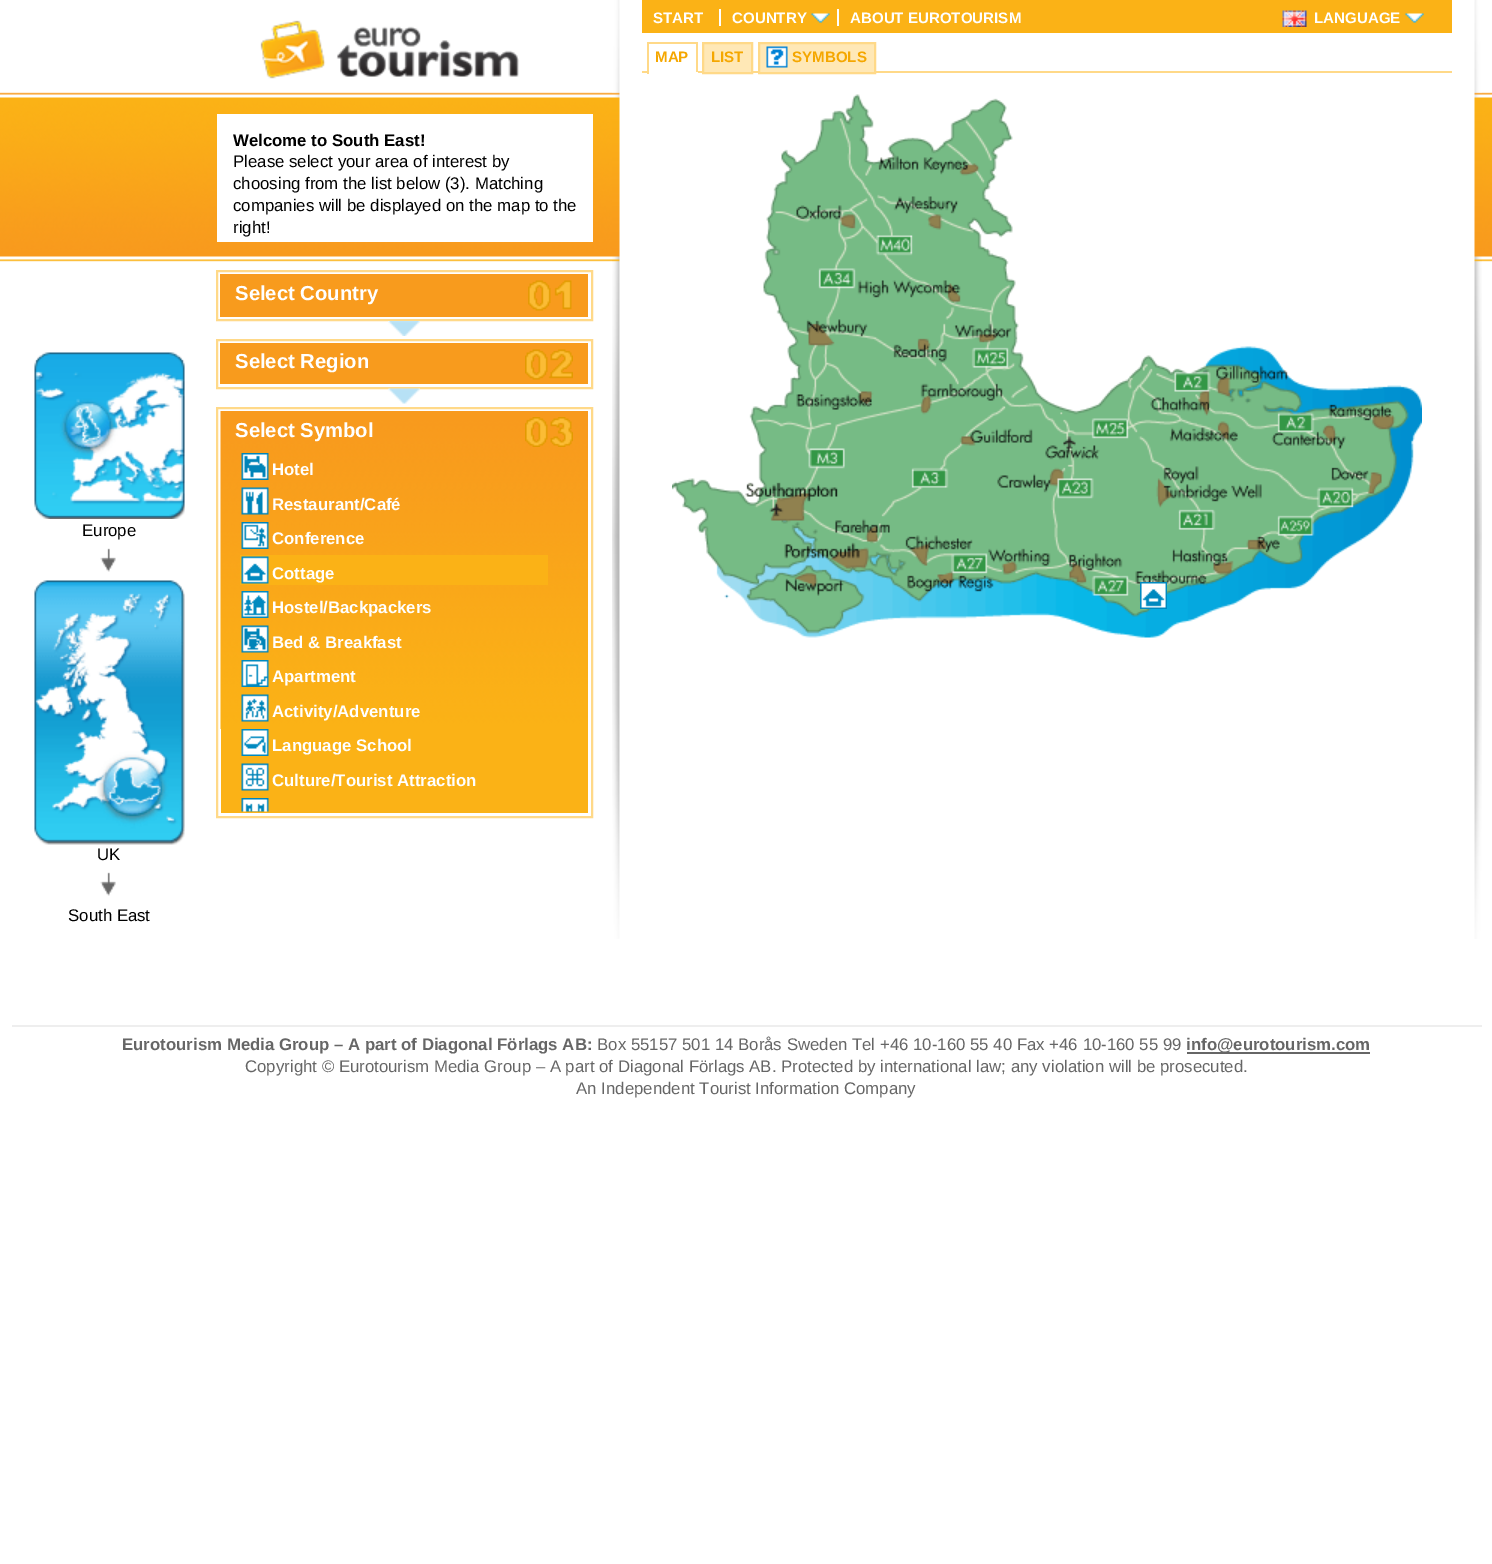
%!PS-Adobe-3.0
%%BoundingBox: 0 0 1492 1564
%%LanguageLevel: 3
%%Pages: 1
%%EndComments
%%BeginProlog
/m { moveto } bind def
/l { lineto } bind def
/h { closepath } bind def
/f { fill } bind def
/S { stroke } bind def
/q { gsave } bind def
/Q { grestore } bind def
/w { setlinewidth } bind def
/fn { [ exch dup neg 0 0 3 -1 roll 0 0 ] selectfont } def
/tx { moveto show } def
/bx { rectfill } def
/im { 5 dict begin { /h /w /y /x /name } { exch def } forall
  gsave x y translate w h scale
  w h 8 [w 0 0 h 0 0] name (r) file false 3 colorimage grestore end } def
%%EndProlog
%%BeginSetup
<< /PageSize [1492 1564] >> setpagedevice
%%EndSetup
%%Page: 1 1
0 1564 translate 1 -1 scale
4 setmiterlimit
1 setgray
0 0 1492 1564 bx
(image0.raw) 0 92 1492 170 im
(image1.raw) 612 0 870 939 im
0.984 0.698 0.086 setrgbcolor
642 0 810 33 bx
/LiberationSans-Bold 15.1 fn
1 setgray
(START) 653 23 tx
719 9 2 17 bx
(COUNTRY) 732 23 tx
837 9 2 17 bx
(image2.raw) 811 13 19 10 im
(ABOUT EUROTOURISM) 850 23 tx
(image3.raw) 1282 10 25 17 im
(LANGUAGE) 1314 23 tx
(image4.raw) 1405 13 19 10 im
1 0.851 0.533 setrgbcolor
642 71 810 2 bx
1 setgray
649 71 47 1 bx
1 0.851 0.533 setrgbcolor
647 42 51 2 bx
696 42 2 32 bx
1 setgray
647 72 51 2 bx
1 0.851 0.533 setrgbcolor
647 42 2 32 bx
0.961 0.655 0 setrgbcolor
(MAP) 655 62 tx
1 0.91 0.714 setrgbcolor
703 43 m 752 43 l 752 73 l 703 73 l h q f Q
1 0.851 0.533 setrgbcolor
2 w
S
0.961 0.655 0 setrgbcolor
(LIST) 711 62 tx
1 0.91 0.714 setrgbcolor
760 44 114 28 bx
(image5.raw) 766 46 22 22 im
1 0.851 0.533 setrgbcolor
759 43 116 30 rectstroke
0.961 0.655 0 setrgbcolor
(SYMBOLS) 792 62 tx
(image6.raw) 672 94 750 544 im
(image7.raw) 1140 582 27 27 im
(image8.raw) 260 20 259 59 im
1 setgray
217 114 376 128 bx
/LiberationSans-Bold 16.8 fn
0 setgray
(Welcome to South East!) 233 146 tx
/LiberationSans-Regular 16.8 fn
(Please select your area of interest by) 233 167 tx
(choosing from the list below \(3\). Matching) 233 189 tx
(companies will be displayed on the map to the) 233 211 tx
(right!) 233 233 tx
(image9.raw) 34 352 151 167 im
(Europe) 82 536 tx
(image10.raw) 100 548 16 24 im
(image11.raw) 34 580 151 265 im
(UK) 97 860 tx
(image10.raw) 100 872 16 24 im
(South East) 68 921 tx
1 0.851 0.533 setrgbcolor
217 271 375 49 rectstroke
0.973 0.608 0.114 setrgbcolor
220 274 368 43 bx
(image12.raw) 528 280 44 31 im
/LiberationSans-Bold 20.25 fn
1 setgray
(Select Country) 235 300 tx
(image13.raw) 388 321 32 15 im
1 0.851 0.533 setrgbcolor
217 340 375 48 rectstroke
0.973 0.608 0.114 setrgbcolor
220 343 368 41 bx
(image14.raw) 525 349 48 31 im
1 setgray
(Select Region) 235 368 tx
(image15.raw) 388 388 32 16 im
1 0.851 0.533 setrgbcolor
217 408 375 409 rectstroke
0.984 0.698 0.086 setrgbcolor
221 729 367 84 bx
(image16.raw) 220 411 368 318 im
(image17.raw) 525 417 48 30 im
1 setgray
(Select Symbol) 235 437 tx
(image18.raw) 241 453 28 27 im
/LiberationSans-Bold 16.8 fn
(Hotel) 272 475 tx
(image19.raw) 241 487 28 28 im
(Restaurant/Café) 272 510 tx
(image20.raw) 241 522 28 27 im
(Conference) 272 544 tx
0.984 0.698 0.086 setrgbcolor
240 555 308 30 bx
(image21.raw) 241 556 28 28 im
1 setgray
(Cottage) 272 579 tx
(image22.raw) 241 591 28 27 im
(Hostel/Backpackers) 272 613 tx
(image23.raw) 241 625 28 28 im
(Bed & Breakfast) 272 648 tx
(image24.raw) 241 660 28 27 im
(Apartment) 272 682 tx
(image25.raw) 241 694 28 28 im
(Activity/Adventure) 272 717 tx
(image26.raw) 241 729 28 27 im
(Language School) 272 751 tx
(image27.raw) 241 763 28 28 im
(Culture/Tourist Attraction) 272 786 tx
(image28.raw) 241 798 28 14 im
0.933 setgray
12 1025 1470 2 bx
0.4 setgray
(Eurotourism Media Group – A part of Diagonal Förlags AB:) 122 1050 tx
/LiberationSans-Regular 16.8 fn
(Box 55157 501 14 Borås Sweden Tel +46 10-160 55 40 Fax +46 10-160 55 99) 597 1050 tx
1187 1052 183 2 bx
/LiberationSans-Bold 16.8 fn
(info@eurotourism.com) 1186 1050 tx
/LiberationSans-Regular 16.8 fn
(Copyright © Eurotourism Media Group – A part of Diagonal Förlags AB. Protected by international law; any violation will be prosecuted.) 245 1072 tx
(An Independent Tourist Information Company) 576 1094 tx
showpage
%%EOF
